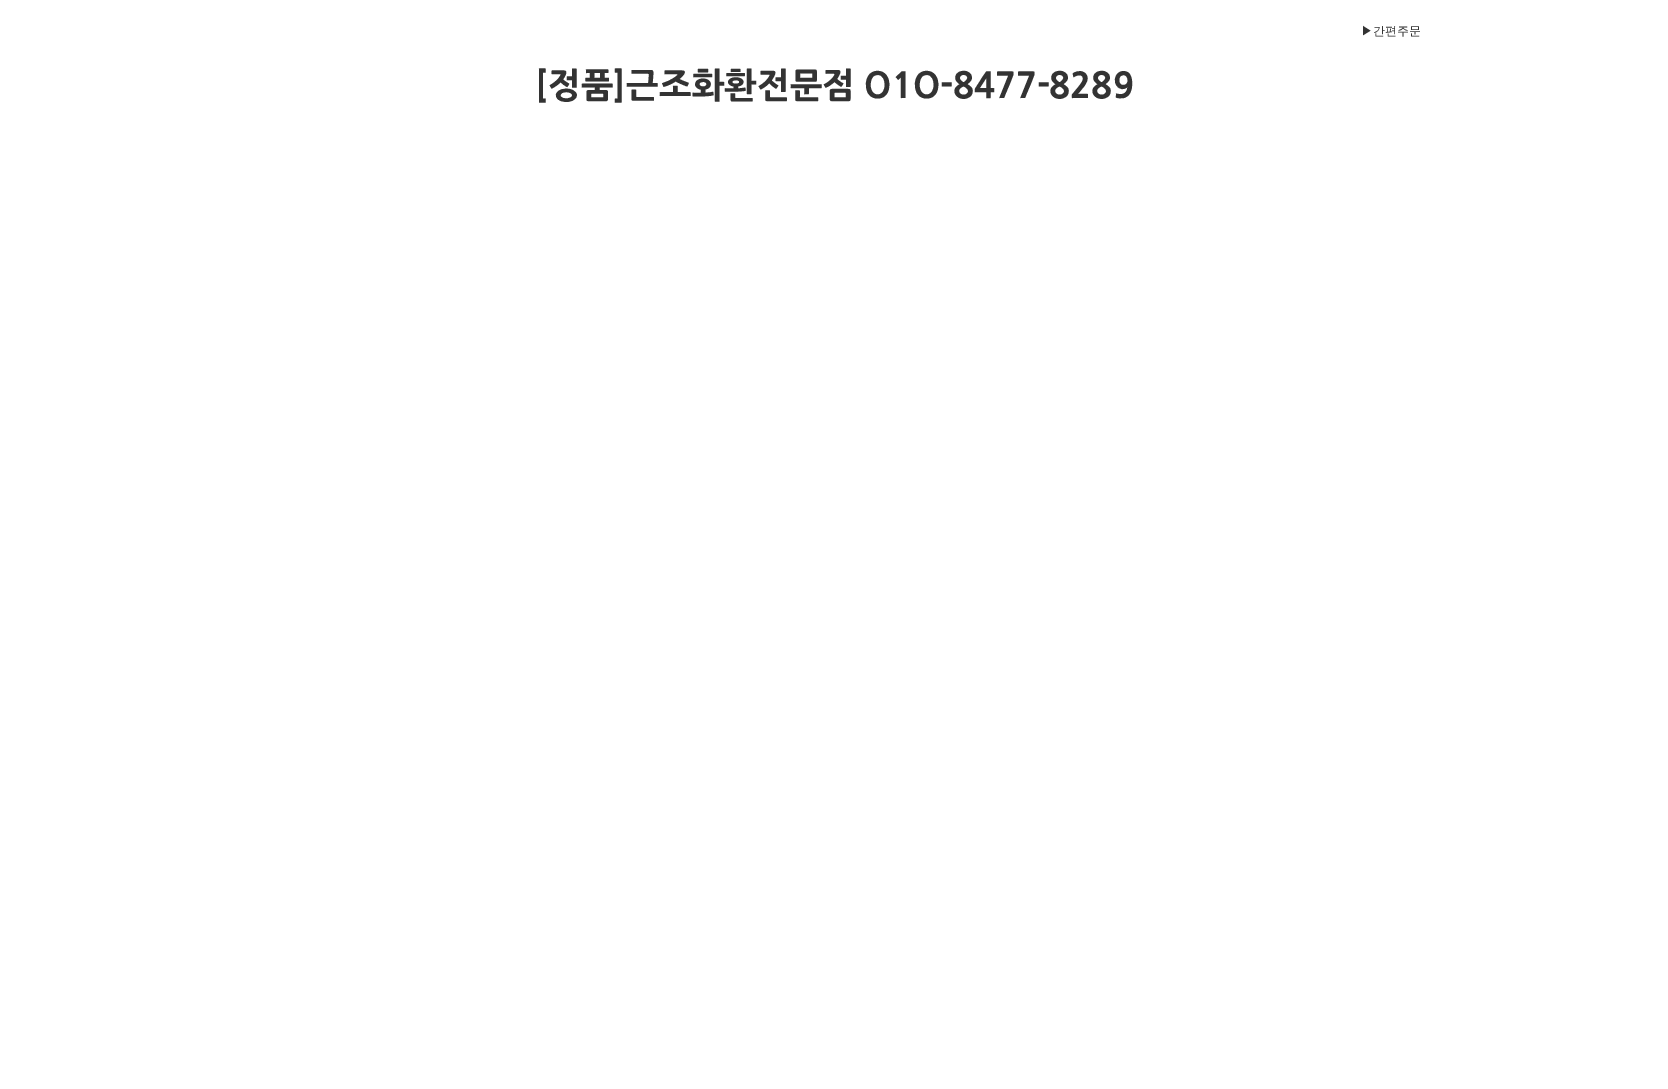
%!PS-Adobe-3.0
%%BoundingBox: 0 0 1668 1089
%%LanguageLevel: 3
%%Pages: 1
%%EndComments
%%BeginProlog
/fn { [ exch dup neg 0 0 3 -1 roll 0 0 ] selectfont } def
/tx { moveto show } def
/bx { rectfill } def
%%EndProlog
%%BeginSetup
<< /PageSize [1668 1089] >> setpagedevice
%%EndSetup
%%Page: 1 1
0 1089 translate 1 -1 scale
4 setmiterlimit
1 setgray
0 0 1668 1089 bx
/WenQuanYiZenHei-Medium 12 fn
0.2 setgray
(▶간편주문) 1361 35 tx
/NanumGothic-ExtraBold 34.7 fn
([정품]근조화환전문점 O1O-8477-8289) 535 98 tx
showpage
%%EOF
